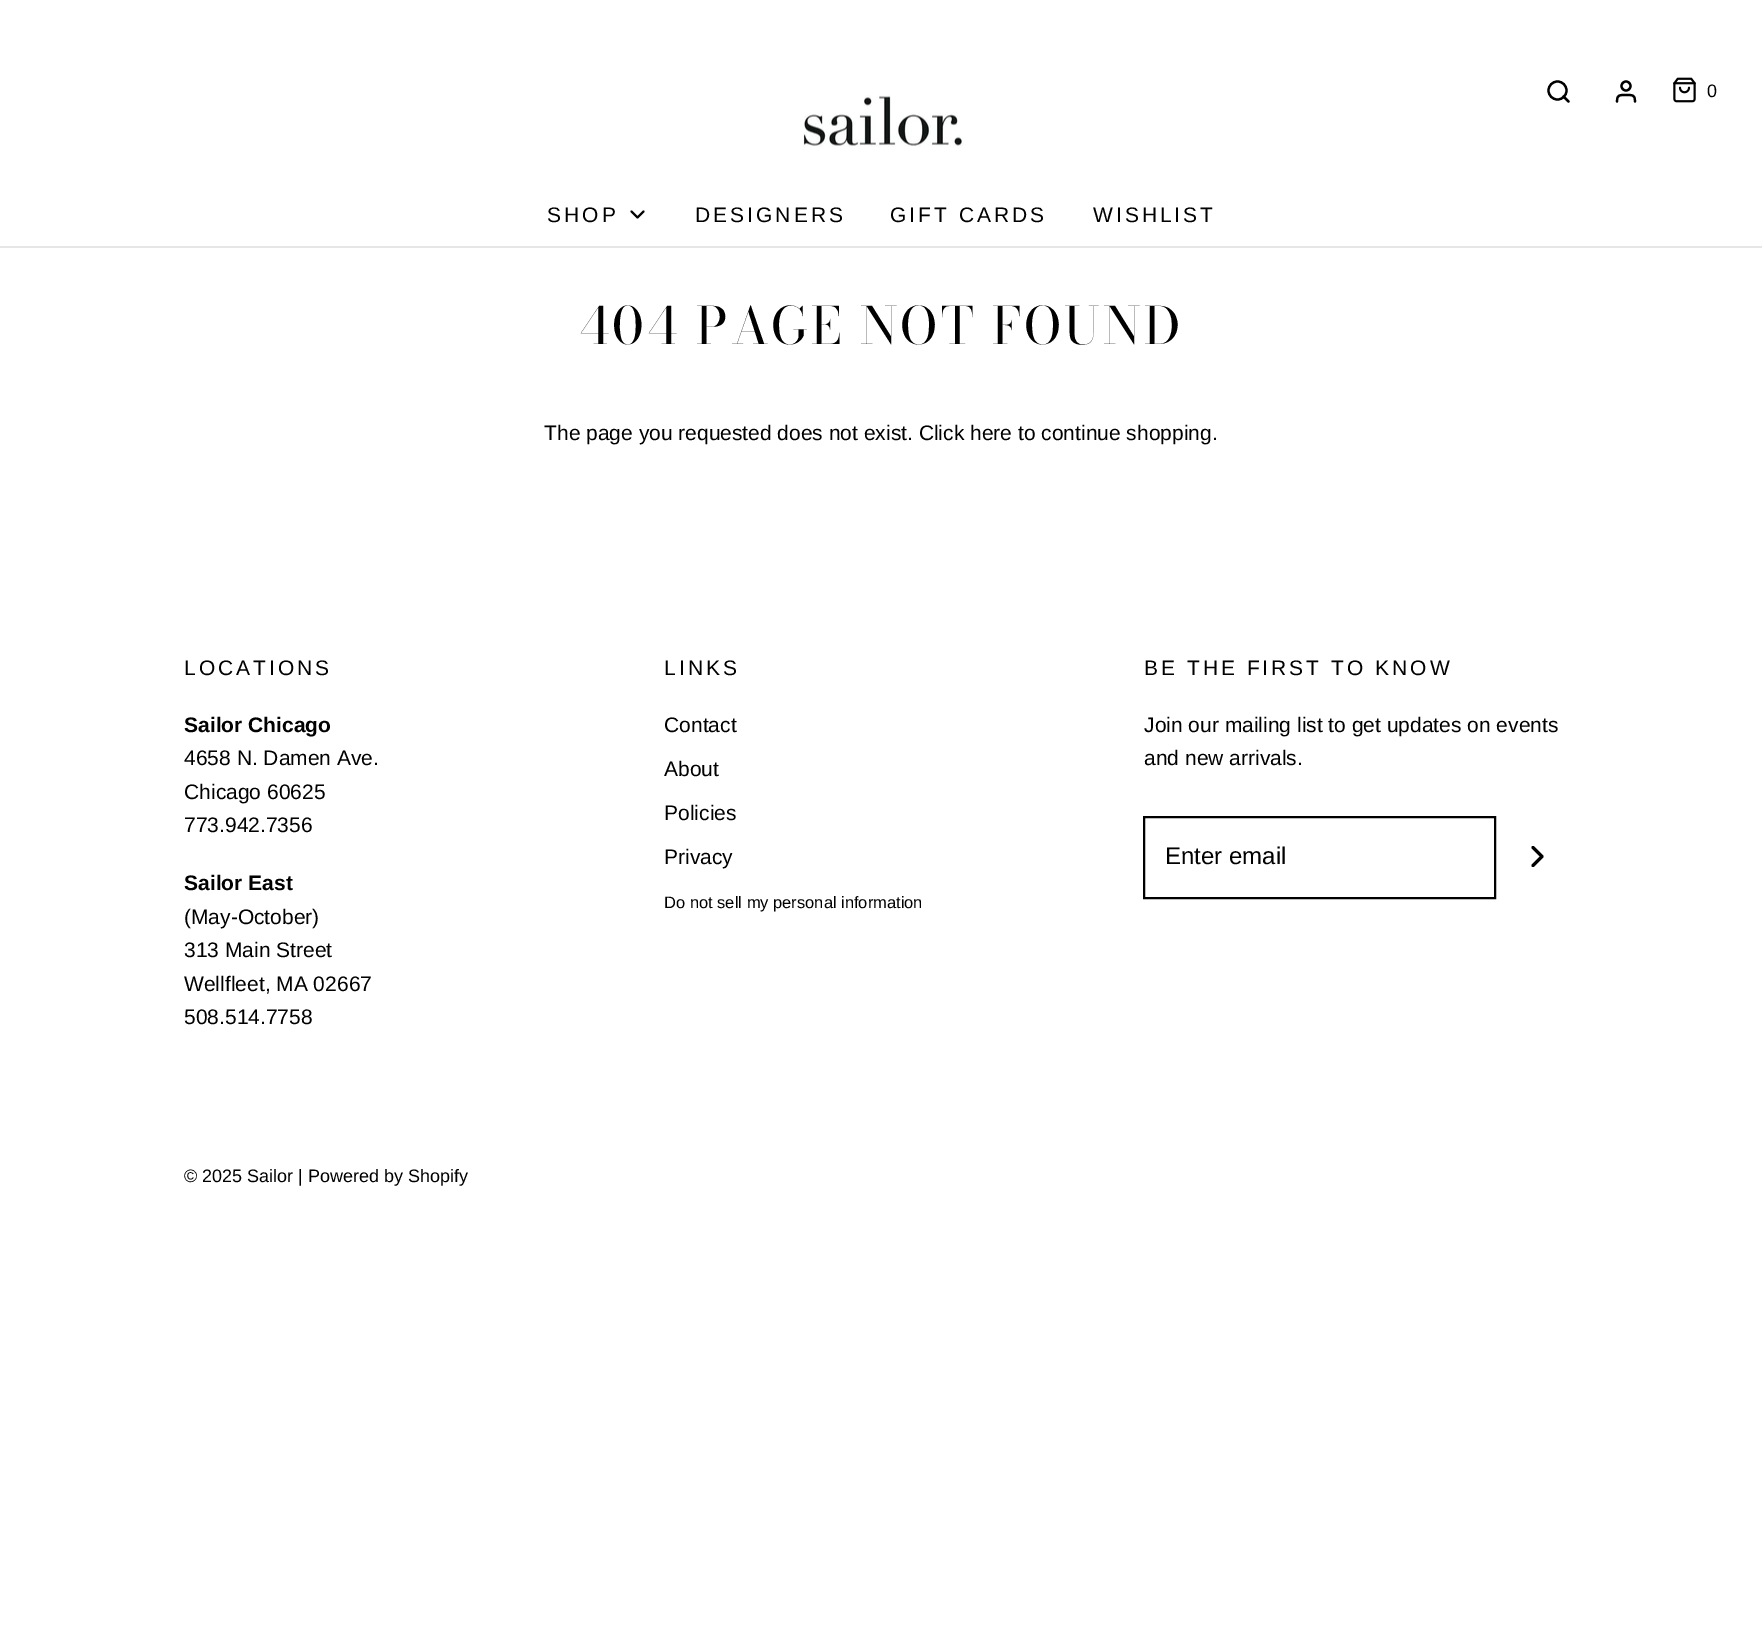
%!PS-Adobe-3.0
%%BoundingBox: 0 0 1762 1633
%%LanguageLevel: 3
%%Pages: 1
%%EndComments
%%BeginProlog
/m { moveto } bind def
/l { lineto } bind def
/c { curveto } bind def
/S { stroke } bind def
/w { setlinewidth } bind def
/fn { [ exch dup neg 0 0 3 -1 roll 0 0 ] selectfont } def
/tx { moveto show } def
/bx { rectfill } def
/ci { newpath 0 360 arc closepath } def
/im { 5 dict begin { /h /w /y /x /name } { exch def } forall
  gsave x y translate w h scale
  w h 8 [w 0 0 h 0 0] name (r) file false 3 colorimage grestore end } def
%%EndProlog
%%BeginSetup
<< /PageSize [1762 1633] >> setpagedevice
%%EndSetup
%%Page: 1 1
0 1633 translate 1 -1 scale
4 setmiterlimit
1 setgray
0 0 1762 1633 bx
0.902 setgray
0 246 1762 2 bx
0 setgray
2.2 w
1557.5 90.5 9 ci S
1 setlinecap
1 setlinejoin
1568.5 101.5 m 1563.5 96.5 l S
1635 101.5 m 1635 94.5 1632.5 95 1626 95 c 1619.5 95 1617 94.5 1617 101.5 c S
0 setlinecap
0 setlinejoin
1626 86 4.5 ci S
(image0.raw) 1673 77 23 26 im
/LiberationSans-Regular 18 fn
(0) 1707 97 tx
(image1.raw) 803 95 161 52 im
/LiberationSans-Regular 21 fn
547 222 m 3 0 (SHOP) ashow
2 w
1 setlinecap
1 setlinejoin
631.5 211.5 m 637.5 217.5 l 643.5 211.5 l S
695 222 m 3 0 (DESIGNERS) ashow
890 222 m 3 0 (GIFT CARDS) ashow
1093 222 m 3 0 (WISHLIST) ashow
/BodoniModa-Regular 51 fn
579 344 m 3 0 (404 PAGE NOT FOUND) ashow
/LiberationSans-Regular 21 fn
(The page you requested does not exist. Click here to continue shopping.) 544 440 tx
184 675 m 3 0 (LOCATIONS) ashow
/LiberationSans-Bold 21 fn
(Sailor Chicago) 184 732 tx
/LiberationSans-Regular 21 fn
(4658 N. Damen Ave.) 184 765 tx
(Chicago 60625) 184 799 tx
(773.942.7356) 184 832 tx
/LiberationSans-Bold 21 fn
(Sailor East) 184 890 tx
/LiberationSans-Regular 21 fn
(\(May-October\)) 184 924 tx
(313 Main Street) 184 957 tx
(Wellfleet, MA 02667) 184 991 tx
(508.514.7758) 184 1024 tx
664 675 m 3 0 (LINKS) ashow
(Contact) 664 732 tx
(About) 664 776 tx
(Policies) 664 820 tx
(Privacy) 664 864 tx
/LiberationSans-Regular 16.5 fn
(Do not sell my personal information) 664 908 tx
/LiberationSans-Regular 21 fn
1144 675 m 3 0 (BE THE FIRST TO KNOW) ashow
(Join our mailing list to get updates on events) 1144 732 tx
(and new arrivals.) 1144 765 tx
0 setlinecap
0 setlinejoin
1144 817 351 81 rectstroke
/LiberationSans-Regular 24 fn
(Enter email) 1165 864 tx
3 w
1 setlinecap
1 setlinejoin
1533 865.5 m 1542 856.5 l 1533 847.5 l S
/LiberationSans-Regular 18 fn
(© 2025 Sailor | Powered by Shopify) 184 1182 tx
showpage
%%EOF
